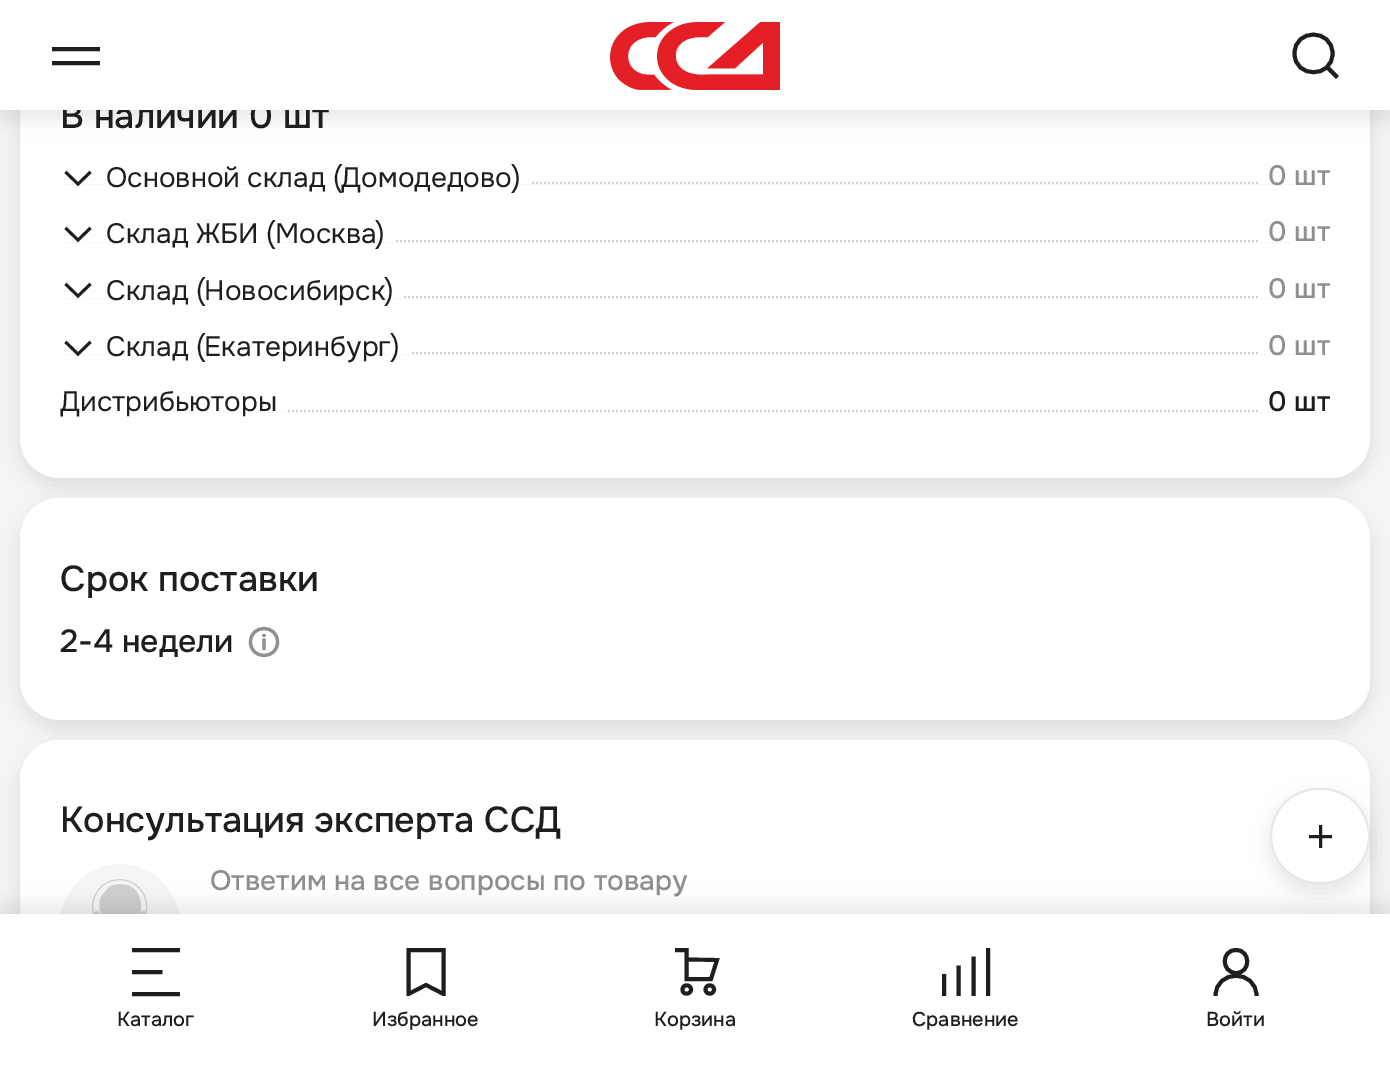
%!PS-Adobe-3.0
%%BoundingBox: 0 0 1390 1077
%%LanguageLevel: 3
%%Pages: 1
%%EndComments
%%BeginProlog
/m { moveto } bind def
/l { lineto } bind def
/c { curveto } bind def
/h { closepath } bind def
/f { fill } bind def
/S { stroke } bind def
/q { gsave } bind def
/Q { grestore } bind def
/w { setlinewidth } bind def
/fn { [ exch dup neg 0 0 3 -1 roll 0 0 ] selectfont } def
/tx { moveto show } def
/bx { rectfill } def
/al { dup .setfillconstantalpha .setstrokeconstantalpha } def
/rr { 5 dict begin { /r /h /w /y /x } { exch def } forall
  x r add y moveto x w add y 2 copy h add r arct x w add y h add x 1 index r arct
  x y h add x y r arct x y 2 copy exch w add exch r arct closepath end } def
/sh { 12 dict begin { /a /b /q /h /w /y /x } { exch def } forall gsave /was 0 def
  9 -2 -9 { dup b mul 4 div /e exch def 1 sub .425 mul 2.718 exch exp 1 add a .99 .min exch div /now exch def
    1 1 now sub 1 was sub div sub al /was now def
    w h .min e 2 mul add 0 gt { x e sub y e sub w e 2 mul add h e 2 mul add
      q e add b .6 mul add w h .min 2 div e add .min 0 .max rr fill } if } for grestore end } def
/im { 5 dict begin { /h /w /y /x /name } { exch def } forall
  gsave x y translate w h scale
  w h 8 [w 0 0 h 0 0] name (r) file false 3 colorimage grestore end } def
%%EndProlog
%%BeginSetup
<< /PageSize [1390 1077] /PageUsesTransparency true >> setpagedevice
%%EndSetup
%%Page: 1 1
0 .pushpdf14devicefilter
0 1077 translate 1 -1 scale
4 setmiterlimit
0.961 setgray
0 0 1390 1077 bx
0 setgray
20 44 1350 442 40 10 0.1 sh
1 setgray
20 36 1350 442 40 rr f
0 setgray
0 8 1390 110 0 10 0.1 sh
/Onest-Medium 36 fn
0.118 setgray
(В наличии 0 шт) 60 128 tx
1 setgray
0 0 1390 110 bx
0.118 setgray
3.9 w
52 49 m 100 49 l 52 63 m 100 63 l S
(image0.raw) 610 22 170 68 im
1337.5 77.5 m 1326.5 66.5 l 1332.5 53.5 m 1332.5 78.5 1294.5 78.5 1294.5 53.5 c 1294.5 28 1332.5 28.5 1332.5 53.5 c h S
0.812 setgray
2 w
[2 2] 0 setdash
60 183 m 1330 183 l S
1 setgray
60 182 470 2 bx
0.118 setgray
2.9 w
[] 0 setdash
65.5 172 m 78 184 l 90.5 172 l S
/Onest-Regular 28 fn
(Основной склад \(Домодедово\)) 106 187 tx
1 setgray
1260 182 70 2 bx
/Onest-Medium 28 fn
0.561 setgray
(0 шт) 1268 185 tx
0.812 setgray
2 w
[2 2] 0 setdash
60 241 m 1330 241 l S
1 setgray
60 240 334 2 bx
0.118 setgray
2.9 w
[] 0 setdash
65.5 228 m 78 240 l 90.5 228 l S
/Onest-Regular 28 fn
(Склад ЖБИ \(Москва\)) 106 243 tx
1 setgray
1260 240 70 2 bx
/Onest-Medium 28 fn
0.561 setgray
(0 шт) 1268 241 tx
0.812 setgray
2 w
[2 2] 0 setdash
60 297 m 1330 297 l S
1 setgray
60 296 342 2 bx
0.118 setgray
2.9 w
[] 0 setdash
65.5 284 m 78 296 l 90.5 284 l S
/Onest-Regular 28 fn
(Склад \(Новосибирск\)) 106 300 tx
1 setgray
1260 296 70 2 bx
/Onest-Medium 28 fn
0.561 setgray
(0 шт) 1268 298 tx
0.812 setgray
2 w
[2 2] 0 setdash
60 353 m 1330 353 l S
1 setgray
60 352 350 2 bx
0.118 setgray
2.9 w
[] 0 setdash
65.5 342 m 78 354 l 90.5 342 l S
/Onest-Regular 28 fn
(Склад \(Екатеринбург\)) 106 356 tx
1 setgray
1260 352 70 2 bx
/Onest-Medium 28 fn
0.561 setgray
(0 шт) 1268 355 tx
0.812 setgray
2 w
[2 2] 0 setdash
60 411 m 1330 411 l S
1 setgray
60 410 226 2 bx
/Onest-Regular 28 fn
0.118 setgray
(Дистрибьюторы) 60 411 tx
1 setgray
1260 410 70 2 bx
/Onest-Medium 28 fn
0.118 setgray
(0 шт) 1268 411 tx
0 setgray
20 506 1350 222 40 10 0.1 sh
1 setgray
20 498 1350 222 40 rr f
/Onest-Medium 36 fn
0.118 setgray
(Срок поставки) 60 591 tx
/Onest-Medium 32 fn
(2-4 недели) 60 652 tx
0.561 setgray
3.2 w
[] 0 setdash
264 650 m 264 638.5 l 264 637 m 264 634 l 277.5 642 m 277.5 660 250.5 660 250.5 642 c 250.5 624 277.5 624 277.5 642 c h S
0 setgray
20 748 1350 314 40 10 0.1 sh
1 setgray
20 740 1350 314 40 rr f
/Onest-Medium 36 fn
0.118 setgray
(Консультация эксперта ССД) 60 832 tx
(image1.raw) 60 864 120 50 im
/Onest-Medium 28 fn
0.561 setgray
(Ответим на все вопросы по товару) 210 890 tx
0 setgray
1270 796 100 96 48 10 0.1 sh
1 setgray
1271 789 98 94 47 rr q f Q
0.906 setgray
2 w
S
0.118 setgray
2.9 w
1320.5 825 m 1320.5 848 l 1309 836.5 m 1332 836.5 l S
0 setgray
0 906 1390 164 0 10 0.1 sh
1 setgray
0 914 1390 163 bx
0.118 setgray
3.9 w
132 950 m 180 950 l 132 994 m 180 994 l 132 972 m 162.5 972 l S
/Onest-Medium 20 fn
(Каталог) 117 1026 tx
q
402 948 48 48 rectclip
443.5 994 m 426 985 l 408.5 994 l 408.5 950 l 443.5 950 l h S
Q
(Избранное) 372 1026 tx
675 950 m 686.5 950 l 686.5 979 l 711 979 l 717 960 l 686.5 959.5 l 691 989.5 m 691 995 682 995 682.5 989.5 c 682.5 984 691 984 691 989.5 c h 714 989.5 m 714 995 705.5 995 705.5 989.5 c 705.5 984 714 984 714 989.5 c h S
(Корзина) 654 1026 tx
958.5 965.5 m 958.5 996 l 944 974 m 944 996 l 988 996 m 988 948 l 973.5 956.5 m 973.5 996 l S
(Сравнение) 912 1026 tx
1215.5 996 m 1215.5 969 1256.5 969 1256.5 996 c 1236 973 m 1251 973 1251 950 1236 950 c 1221 950 1221 972.5 1236 973 c h S
(Войти) 1206 1026 tx
.poppdf14devicefilter showpage
%%EOF
